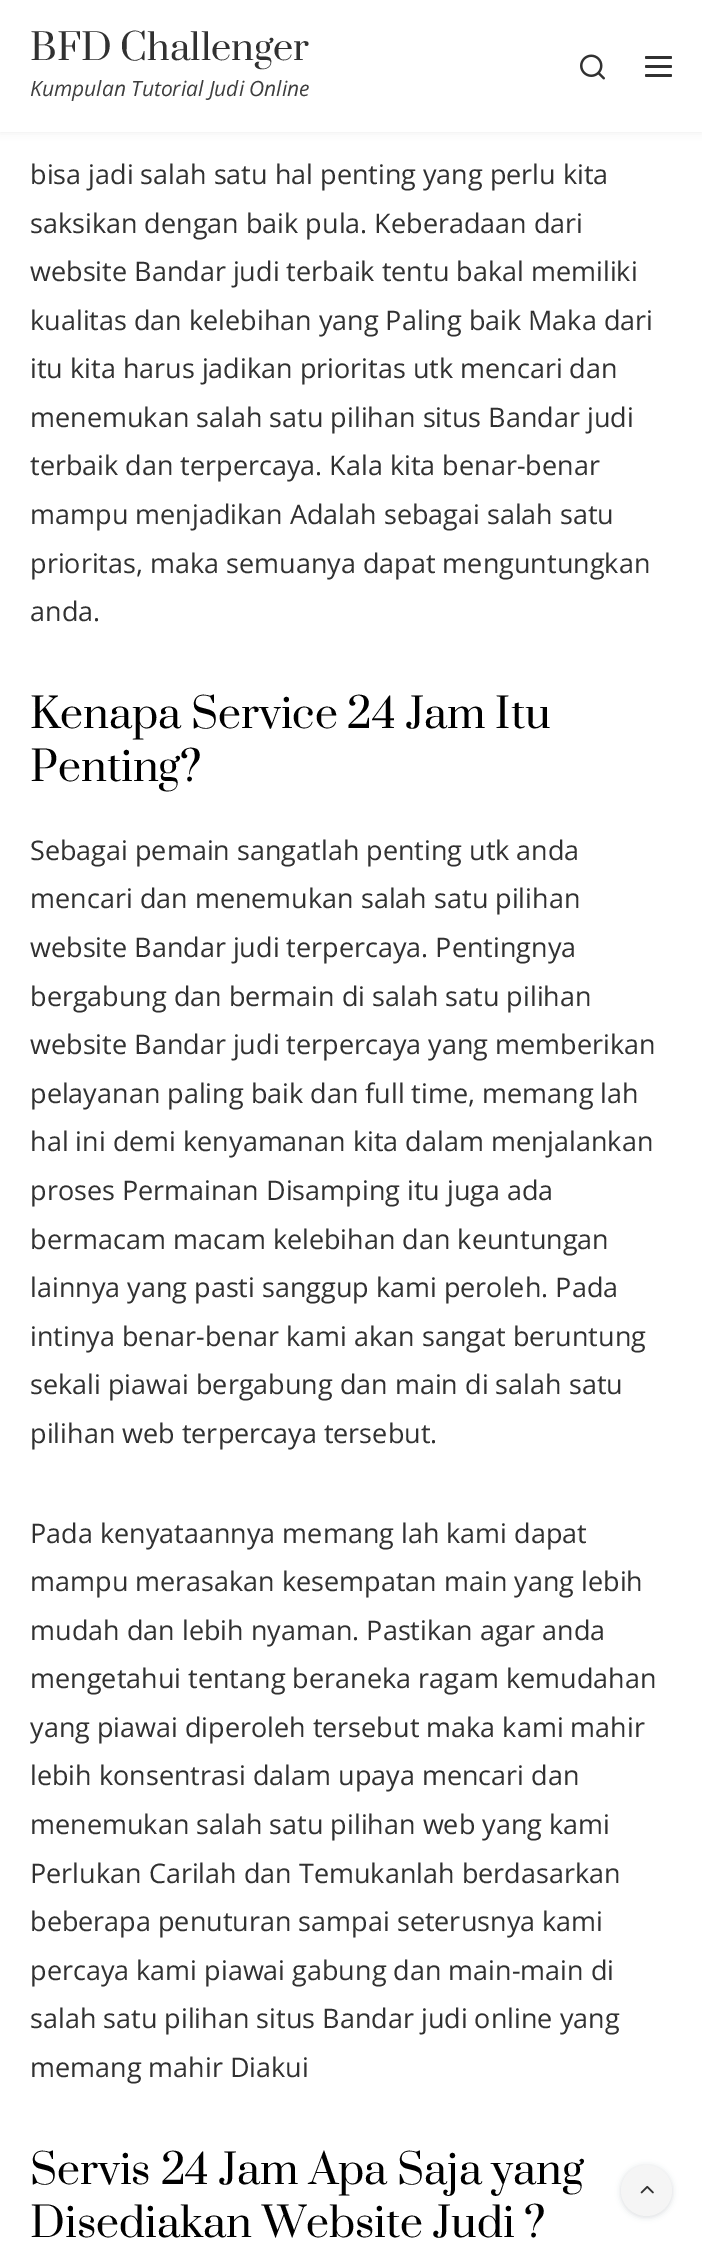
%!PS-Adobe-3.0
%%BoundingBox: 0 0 702 2245
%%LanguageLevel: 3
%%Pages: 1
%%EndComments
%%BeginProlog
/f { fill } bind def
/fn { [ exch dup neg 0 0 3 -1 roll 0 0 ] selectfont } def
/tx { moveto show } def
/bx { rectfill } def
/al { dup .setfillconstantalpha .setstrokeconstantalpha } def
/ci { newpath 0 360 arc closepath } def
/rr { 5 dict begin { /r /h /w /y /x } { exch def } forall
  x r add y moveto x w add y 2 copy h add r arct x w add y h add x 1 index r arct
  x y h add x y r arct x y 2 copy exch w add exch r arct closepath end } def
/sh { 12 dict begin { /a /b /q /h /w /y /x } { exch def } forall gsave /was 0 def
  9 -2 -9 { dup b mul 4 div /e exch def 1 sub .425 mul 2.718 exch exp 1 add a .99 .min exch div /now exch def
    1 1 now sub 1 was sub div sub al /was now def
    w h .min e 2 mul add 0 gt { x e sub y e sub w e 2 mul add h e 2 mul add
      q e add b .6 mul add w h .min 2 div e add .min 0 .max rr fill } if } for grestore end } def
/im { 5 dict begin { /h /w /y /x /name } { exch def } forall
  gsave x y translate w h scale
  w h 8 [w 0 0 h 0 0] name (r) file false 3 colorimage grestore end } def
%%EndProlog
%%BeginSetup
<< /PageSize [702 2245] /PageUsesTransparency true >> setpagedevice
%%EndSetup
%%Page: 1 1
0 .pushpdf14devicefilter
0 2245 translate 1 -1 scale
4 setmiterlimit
1 setgray
0 0 702 2245 bx
0.243 0.251 0.271 setrgbcolor
0 0 702 132 0 4 0.1 sh
1 setgray
0 0 702 132 bx
/Prata-Regular 36 fn
0.192 setgray
(BFD Challenger) 30 60 tx
/OpenSans-Italic 21 fn
0.243 setgray
(Kumpulan Tutorial Judi Online) 30 96 tx
(image0.raw) 580 54 25 26 im
0.192 setgray
645 56 27 3 1.5 rr f
645 65 27 3 1.5 rr f
645 74 27 3 1.5 rr f
/OpenSans-Regular 27 fn
(bisa jadi salah satu hal penting yang perlu kita) 30 184 tx
(saksikan dengan baik pula. Keberadaan dari) 30 233 tx
(website Bandar judi terbaik tentu bakal memiliki) 30 281 tx
(kualitas dan kelebihan yang Paling baik Maka dari) 30 330 tx
(itu kita harus jadikan prioritas utk mencari dan) 30 378 tx
(menemukan salah satu pilihan situs Bandar judi) 30 427 tx
(terbaik dan terpercaya. Kala kita benar-benar) 30 475 tx
(mampu menjadikan Adalah sebagai salah satu) 30 524 tx
(prioritas, maka semuanya dapat menguntungkan) 30 573 tx
(anda.) 30 621 tx
/Prata-Regular 40.75 fn
0 setgray
(Kenapa Service 24 Jam Itu) 30 728 tx
(Penting?) 30 781 tx
/OpenSans-Regular 27 fn
0.192 setgray
(Sebagai pemain sangatlah penting utk anda) 30 860 tx
(mencari dan menemukan salah satu pilihan) 30 908 tx
(website Bandar judi terpercaya. Pentingnya) 30 957 tx
(bergabung dan bermain di salah satu pilihan) 30 1006 tx
(website Bandar judi terpercaya yang memberikan) 30 1054 tx
(pelayanan paling baik dan full time, memang lah) 30 1103 tx
(hal ini demi kenyamanan kita dalam menjalankan) 30 1151 tx
(proses Permainan Disamping itu juga ada) 30 1200 tx
(bermacam macam kelebihan dan keuntungan) 30 1249 tx
(lainnya yang pasti sanggup kami peroleh. Pada) 30 1297 tx
(intinya benar-benar kami akan sangat beruntung) 30 1346 tx
(sekali piawai bergabung dan main di salah satu) 30 1394 tx
(pilihan web terpercaya tersebut.) 30 1443 tx
(Pada kenyataannya memang lah kami dapat) 30 1543 tx
(mampu merasakan kesempatan main yang lebih) 30 1591 tx
(mudah dan lebih nyaman. Pastikan agar anda) 30 1640 tx
(mengetahui tentang beraneka ragam kemudahan) 30 1688 tx
(yang piawai diperoleh tersebut maka kami mahir) 30 1737 tx
(lebih konsentrasi dalam upaya mencari dan) 30 1785 tx
(menemukan salah satu pilihan web yang kami) 30 1834 tx
(Perlukan Carilah dan Temukanlah berdasarkan) 30 1883 tx
(beberapa penuturan sampai seterusnya kami) 30 1931 tx
(percaya kami piawai gabung dan main-main di) 30 1980 tx
(salah satu pilihan situs Bandar judi online yang) 30 2028 tx
(memang mahir Diakui) 30 2077 tx
/Prata-Regular 40.75 fn
0 setgray
(Servis 24 Jam Apa Saja yang) 30 2184 tx
(Disediakan Website Judi ?) 30 2237 tx
0.604 0.631 0.671 setrgbcolor
621 2166 51 51 25.5 3 0.4 sh
0.961 setgray
646.5 2190.5 25.5 ci f
(image1.raw) 640 2185 14 9 im
.poppdf14devicefilter showpage
%%EOF
